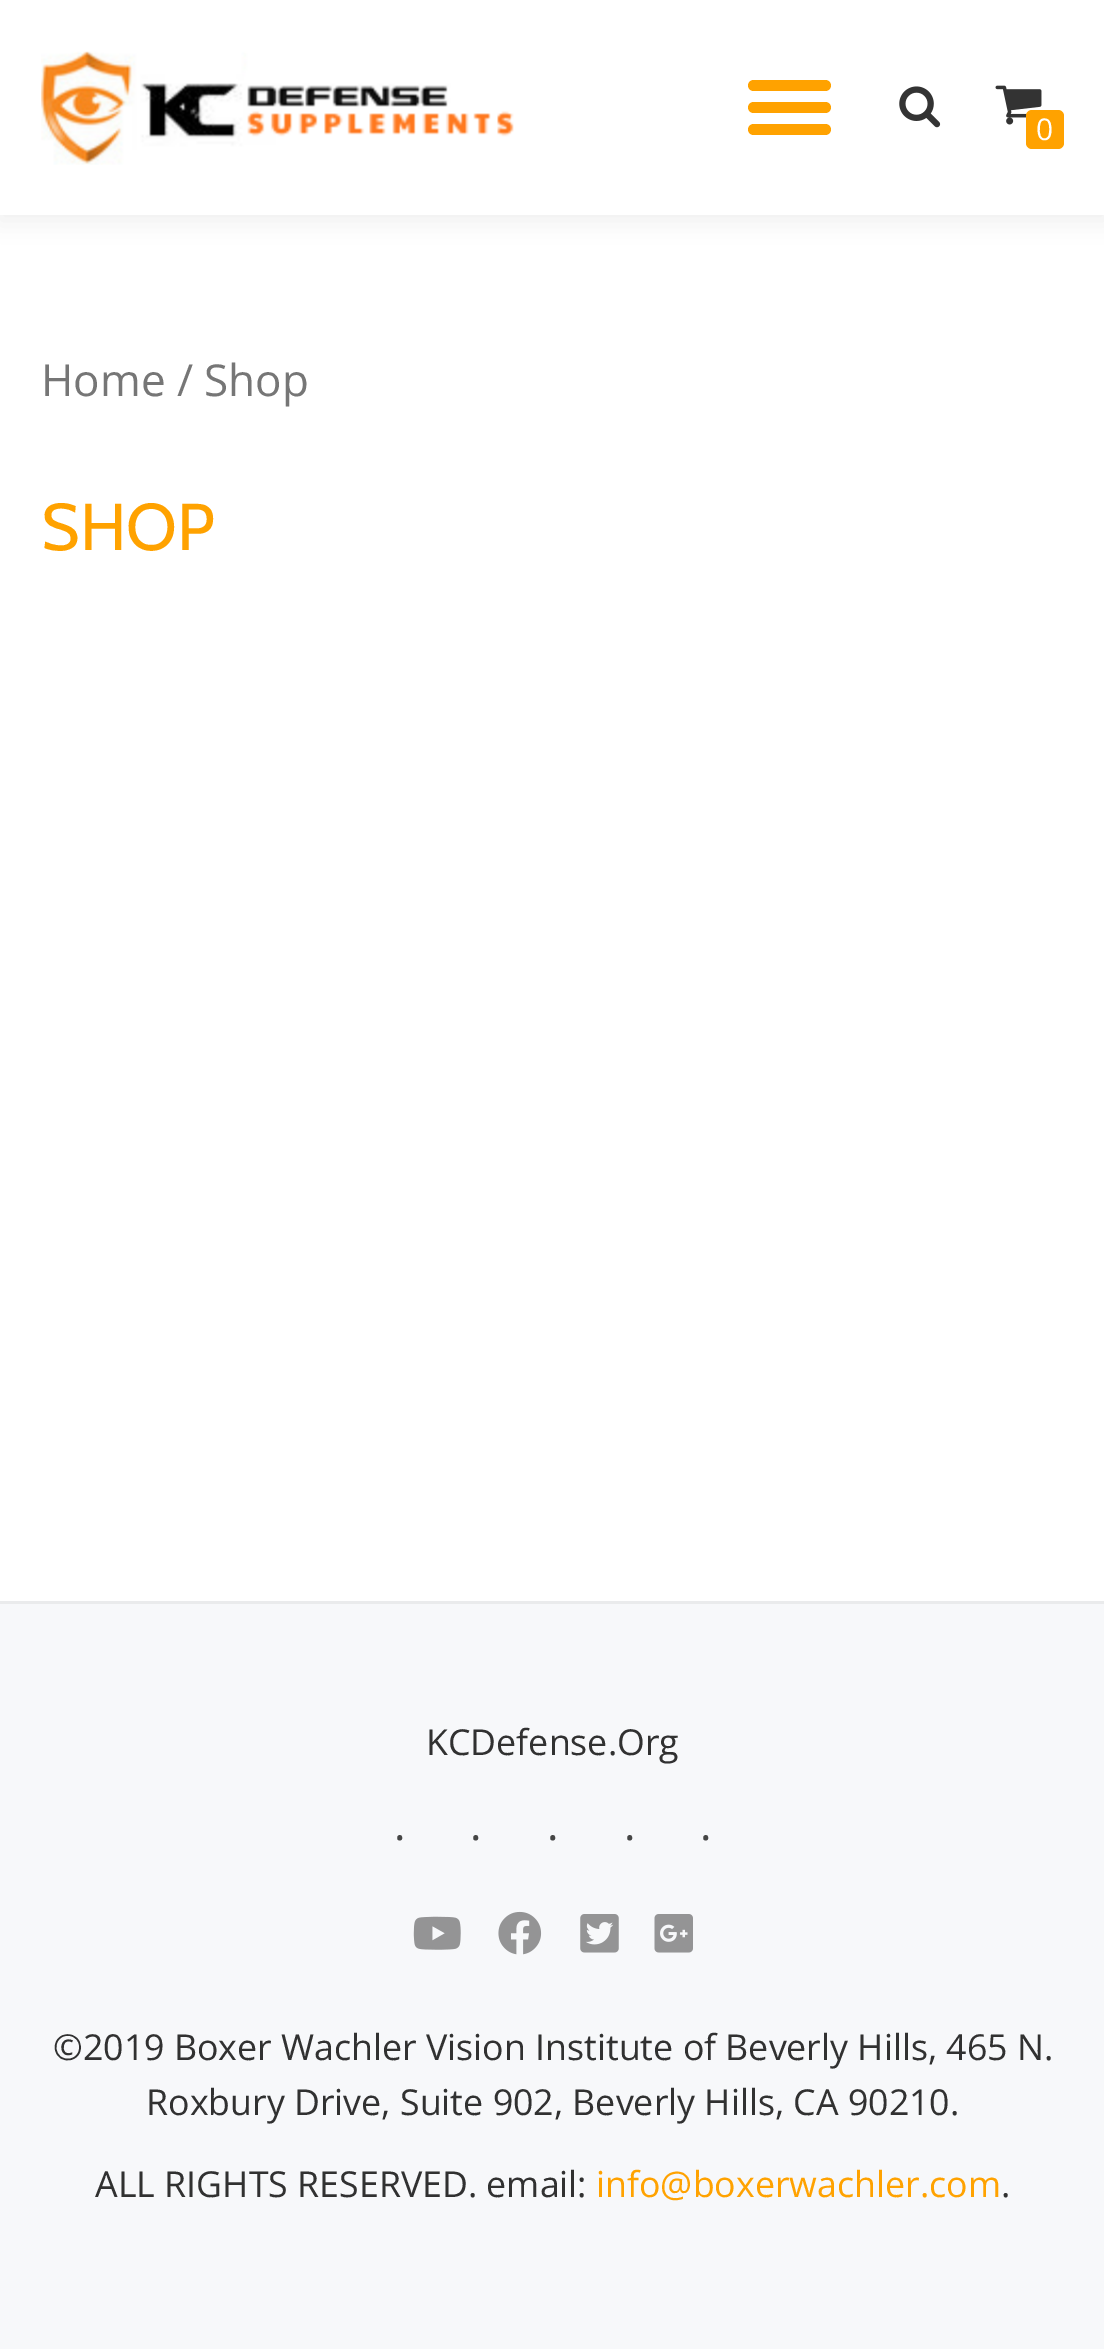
%!PS-Adobe-3.0
%%BoundingBox: 0 0 1104 2349
%%LanguageLevel: 3
%%Pages: 1
%%EndComments
%%BeginProlog
/f { fill } bind def
/fn { [ exch dup neg 0 0 3 -1 roll 0 0 ] selectfont } def
/tx { moveto show } def
/bx { rectfill } def
/al { dup .setfillconstantalpha .setstrokeconstantalpha } def
/rr { 5 dict begin { /r /h /w /y /x } { exch def } forall
  x r add y moveto x w add y 2 copy h add r arct x w add y h add x 1 index r arct
  x y h add x y r arct x y 2 copy exch w add exch r arct closepath end } def
/sh { 12 dict begin { /a /b /q /h /w /y /x } { exch def } forall gsave /was 0 def
  9 -2 -9 { dup b mul 4 div /e exch def 1 sub .425 mul 2.718 exch exp 1 add a .99 .min exch div /now exch def
    1 1 now sub 1 was sub div sub al /was now def
    w h .min e 2 mul add 0 gt { x e sub y e sub w e 2 mul add h e 2 mul add
      q e add b .6 mul add w h .min 2 div e add .min 0 .max rr fill } if } for grestore end } def
/im { 5 dict begin { /h /w /y /x /name } { exch def } forall
  gsave x y translate w h scale
  w h 8 [w 0 0 h 0 0] name (r) file false 3 colorimage grestore end } def
%%EndProlog
%%BeginSetup
<< /PageSize [1104 2349] /PageUsesTransparency true >> setpagedevice
%%EndSetup
%%Page: 1 1
0 .pushpdf14devicefilter
0 2349 translate 1 -1 scale
4 setmiterlimit
1 setgray
0 0 1104 2349 bx
0.196 setgray
0 6 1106 214 0 11 0.08 sh
1 setgray
0 0 1104 215 bx
(image0.raw) 41 51 473 114 im
1 0.635 0 setrgbcolor
748 80 83 11 5.5 rr f
748 102 83 11 5.5 rr f
748 124 83 11 5.5 rr f
(image1.raw) 899 86 42 42 im
(image2.raw) 995 85 47 40 im
1026 110 38 39 6 rr f
/OpenSans-Regular 30 fn
1 setgray
(0) 1036 140 tx
/OpenSans-Regular 44 fn
0.463 setgray
(Home / Shop) 41 396 tx
/Cabin-Regular 66 fn
1 0.635 0 setrgbcolor
(SHOP) 41 550 tx
0.969 0.973 0.98 setrgbcolor
0 1604 1104 745 bx
0.918 0.922 0.925 setrgbcolor
0 1601 1104 3 bx
/OpenSans-Regular 35.75 fn
0.192 setgray
(KCDefense.Org) 426 1755 tx
/OpenSans-Regular 44 fn
0.271 setgray
(.) 394 1840 tx
(.) 470 1840 tx
(.) 547 1840 tx
(.) 624 1840 tx
(.) 700 1840 tx
(image3.raw) 413 1916 48 34 im
(image4.raw) 498 1911 44 44 im
(image5.raw) 580 1914 39 39 im
(image6.raw) 654 1914 39 39 im
/OpenSans-Regular 35.75 fn
0.192 setgray
(©2019 Boxer Wachler Vision Institute of Beverly Hills, 465 N.) 53 2060 tx
(Roxbury Drive, Suite 902, Beverly Hills, CA 90210.) 146 2115 tx
(ALL RIGHTS RESERVED. email:) 95 2197 tx
1 0.635 0 setrgbcolor
(info@boxerwachler.com) 596 2197 tx
0.192 setgray
(.) 1001 2197 tx
.poppdf14devicefilter showpage
%%EOF
